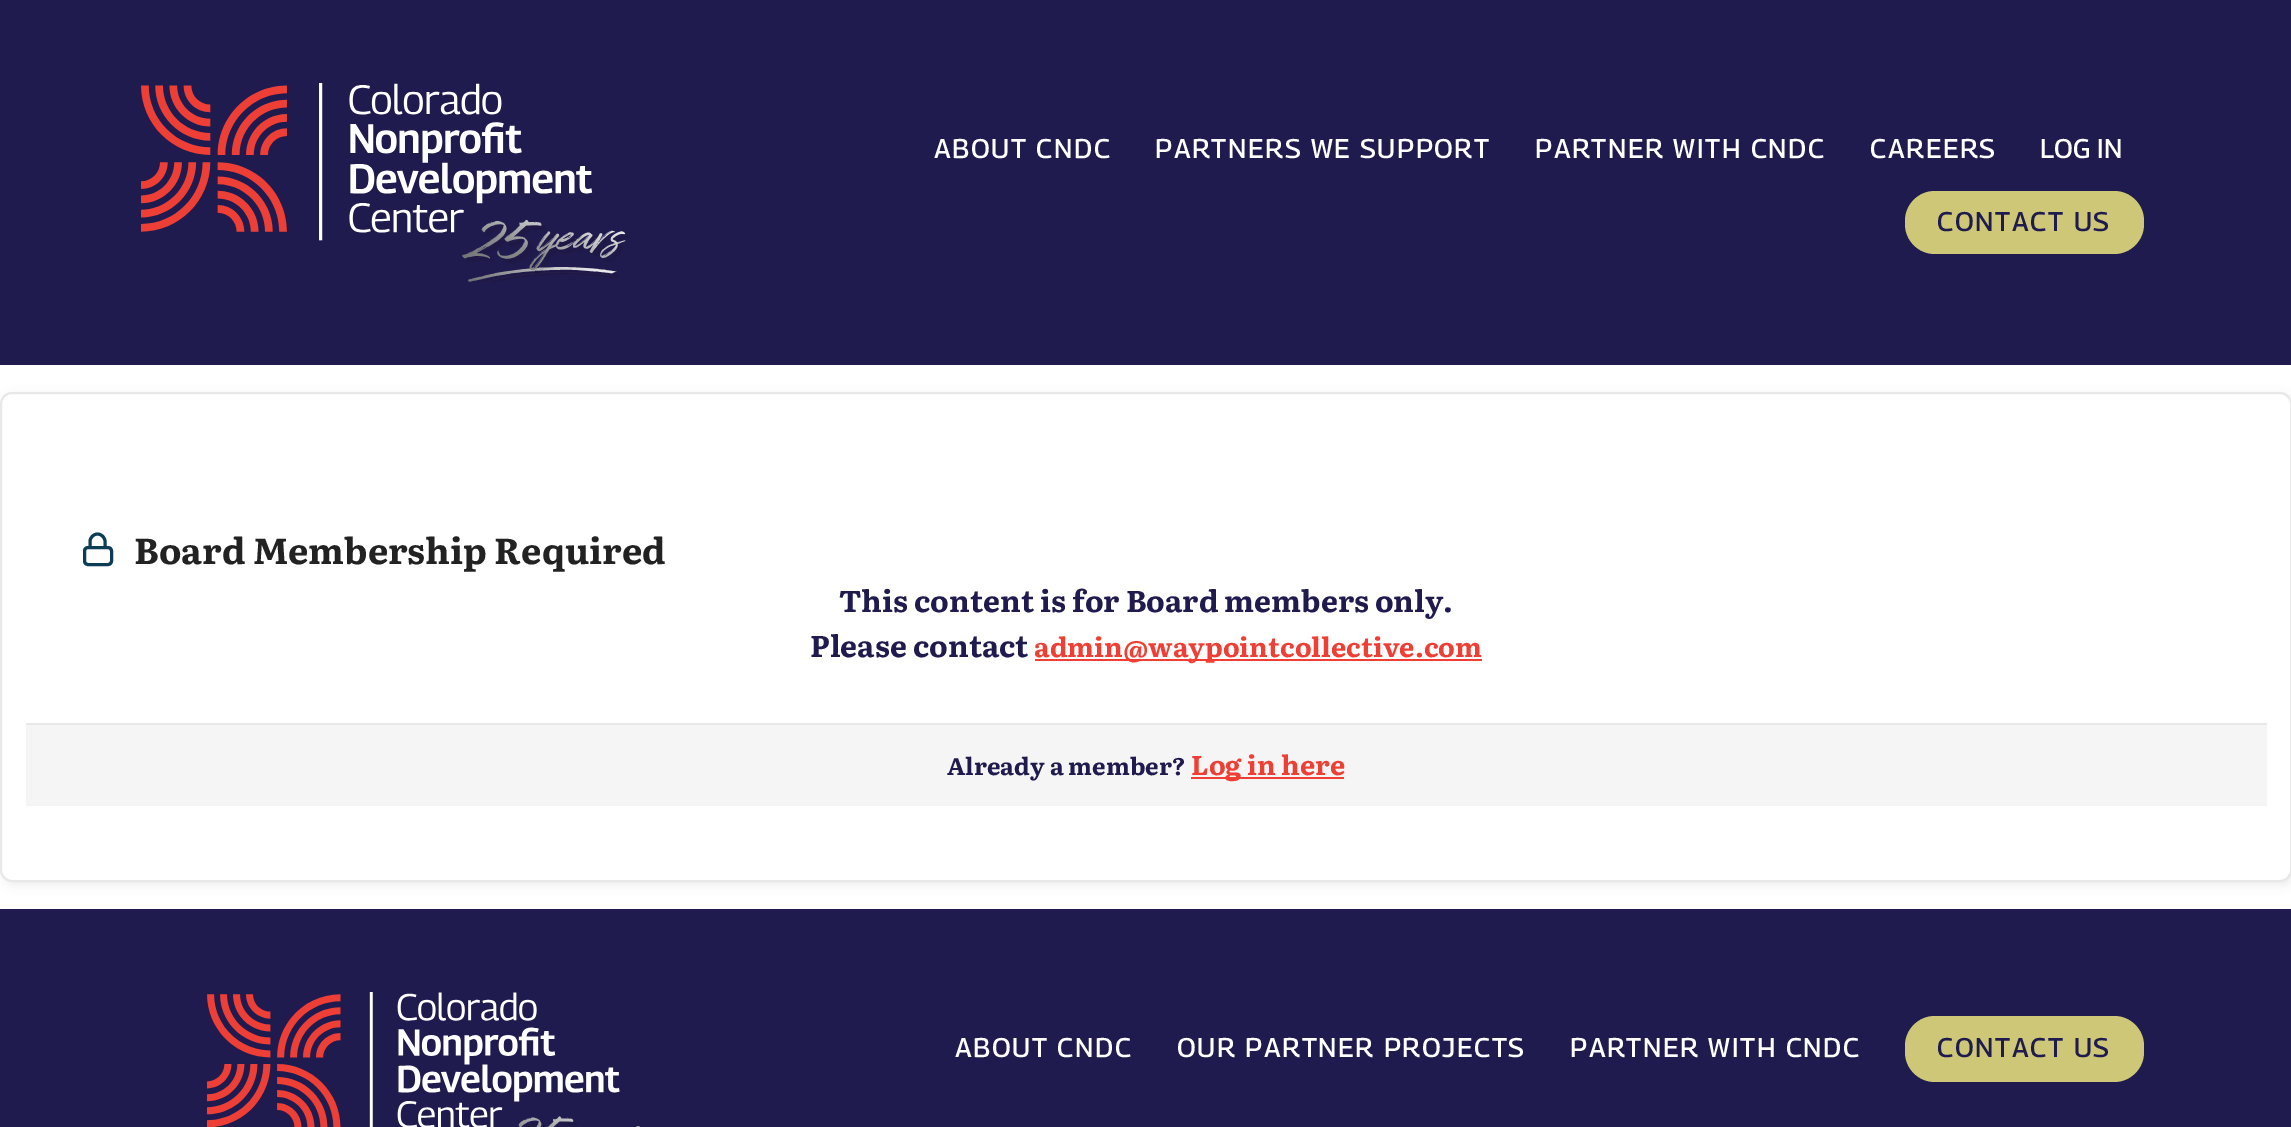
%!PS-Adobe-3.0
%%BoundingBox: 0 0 2291 1127
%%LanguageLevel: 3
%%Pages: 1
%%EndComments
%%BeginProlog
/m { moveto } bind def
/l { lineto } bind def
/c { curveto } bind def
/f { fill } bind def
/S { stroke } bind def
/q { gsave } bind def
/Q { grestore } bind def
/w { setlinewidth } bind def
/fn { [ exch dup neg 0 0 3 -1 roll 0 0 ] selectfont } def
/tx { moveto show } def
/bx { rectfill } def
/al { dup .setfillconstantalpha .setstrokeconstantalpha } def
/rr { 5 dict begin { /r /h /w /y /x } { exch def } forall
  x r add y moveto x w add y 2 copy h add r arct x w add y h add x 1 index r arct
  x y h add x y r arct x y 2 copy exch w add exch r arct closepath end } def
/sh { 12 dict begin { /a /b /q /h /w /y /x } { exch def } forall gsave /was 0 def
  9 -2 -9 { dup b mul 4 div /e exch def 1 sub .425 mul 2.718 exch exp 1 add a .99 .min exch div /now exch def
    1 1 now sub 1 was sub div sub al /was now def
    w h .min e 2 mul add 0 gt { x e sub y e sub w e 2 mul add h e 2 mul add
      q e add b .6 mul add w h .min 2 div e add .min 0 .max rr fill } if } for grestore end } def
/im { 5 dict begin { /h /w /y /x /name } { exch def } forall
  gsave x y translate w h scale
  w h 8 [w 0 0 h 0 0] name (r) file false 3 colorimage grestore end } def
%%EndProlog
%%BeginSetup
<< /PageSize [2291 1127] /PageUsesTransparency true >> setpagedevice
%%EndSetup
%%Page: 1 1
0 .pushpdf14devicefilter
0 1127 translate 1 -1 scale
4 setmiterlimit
1 setgray
0 0 2291 1127 bx
0.125 0.106 0.306 setrgbcolor
0 0 2291 365 bx
(image0.raw) 141 83 488 199 im
/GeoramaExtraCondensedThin-Medium 27 fn
1 setgray
934 158 m 1.6 0 (ABOUT CNDC) ashow
1155 158 m 1.6 0 (PARTNERS WE SUPPORT) ashow
1535 158 m 1.6 0 (PARTNER WITH CNDC) ashow
1870 158 m 1.6 0 (CAREERS) ashow
(LOG IN) 2040 158 tx
0.804 0.78 0.467 setrgbcolor
1905 191 239 63 30 rr f
0.125 0.106 0.306 setrgbcolor
1937 231 m 1.6 0 (CONTACT US) ashow
0 setgray
3 395 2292 490 12 5 0.07 sh
1 setgray
1 393 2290 488 11 rr q f Q
0.91 setgray
2 w
S
0.047 0.239 0.329 setrgbcolor
3 w
84.5 547.5 27 17 3.5 rr S
1 setlinecap
1 setlinejoin
90 547.5 m 90 541.5 l 90 537.5 93.5 534 97.5 534 c 101.5 534 105 537.5 105 541.5 c 105 547.5 l S
/Literata-Bold 36 fn
0.133 setgray
(Board Membership Required) 134 564 tx
/Literata-Bold 30 fn
0.125 0.106 0.306 setrgbcolor
(This content is for Board members only.) 839 612 tx
(Please contact) 810 657 tx
0.937 0.247 0.204 setrgbcolor
1035 659 447 2 bx
/Literata-Bold 27 fn
(admin@waypointcollective.com) 1034 657 tx
0.961 setgray
26 725 2241 81 bx
0.91 setgray
26 723 2241 2 bx
/Literata-Bold 24 fn
0.125 0.106 0.306 setrgbcolor
(Already a member?) 947 775 tx
0.937 0.247 0.204 setrgbcolor
1191 777 153 2 bx
/Literata-Bold 27 fn
(Log in here) 1191 775 tx
0.125 0.106 0.306 setrgbcolor
0 909 2291 218 bx
(image1.raw) 207 992 433 135 im
/GeoramaExtraCondensedThin-Medium 27 fn
1 setgray
955 1057 m 1.6 0 (ABOUT CNDC) ashow
1177 1057 m 1.6 0 (OUR PARTNER PROJECTS) ashow
1570 1057 m 1.6 0 (PARTNER WITH CNDC) ashow
0.804 0.78 0.467 setrgbcolor
1905 1016 239 66 30 rr f
0.125 0.106 0.306 setrgbcolor
1937 1057 m 1.6 0 (CONTACT US) ashow
.poppdf14devicefilter showpage
%%EOF
